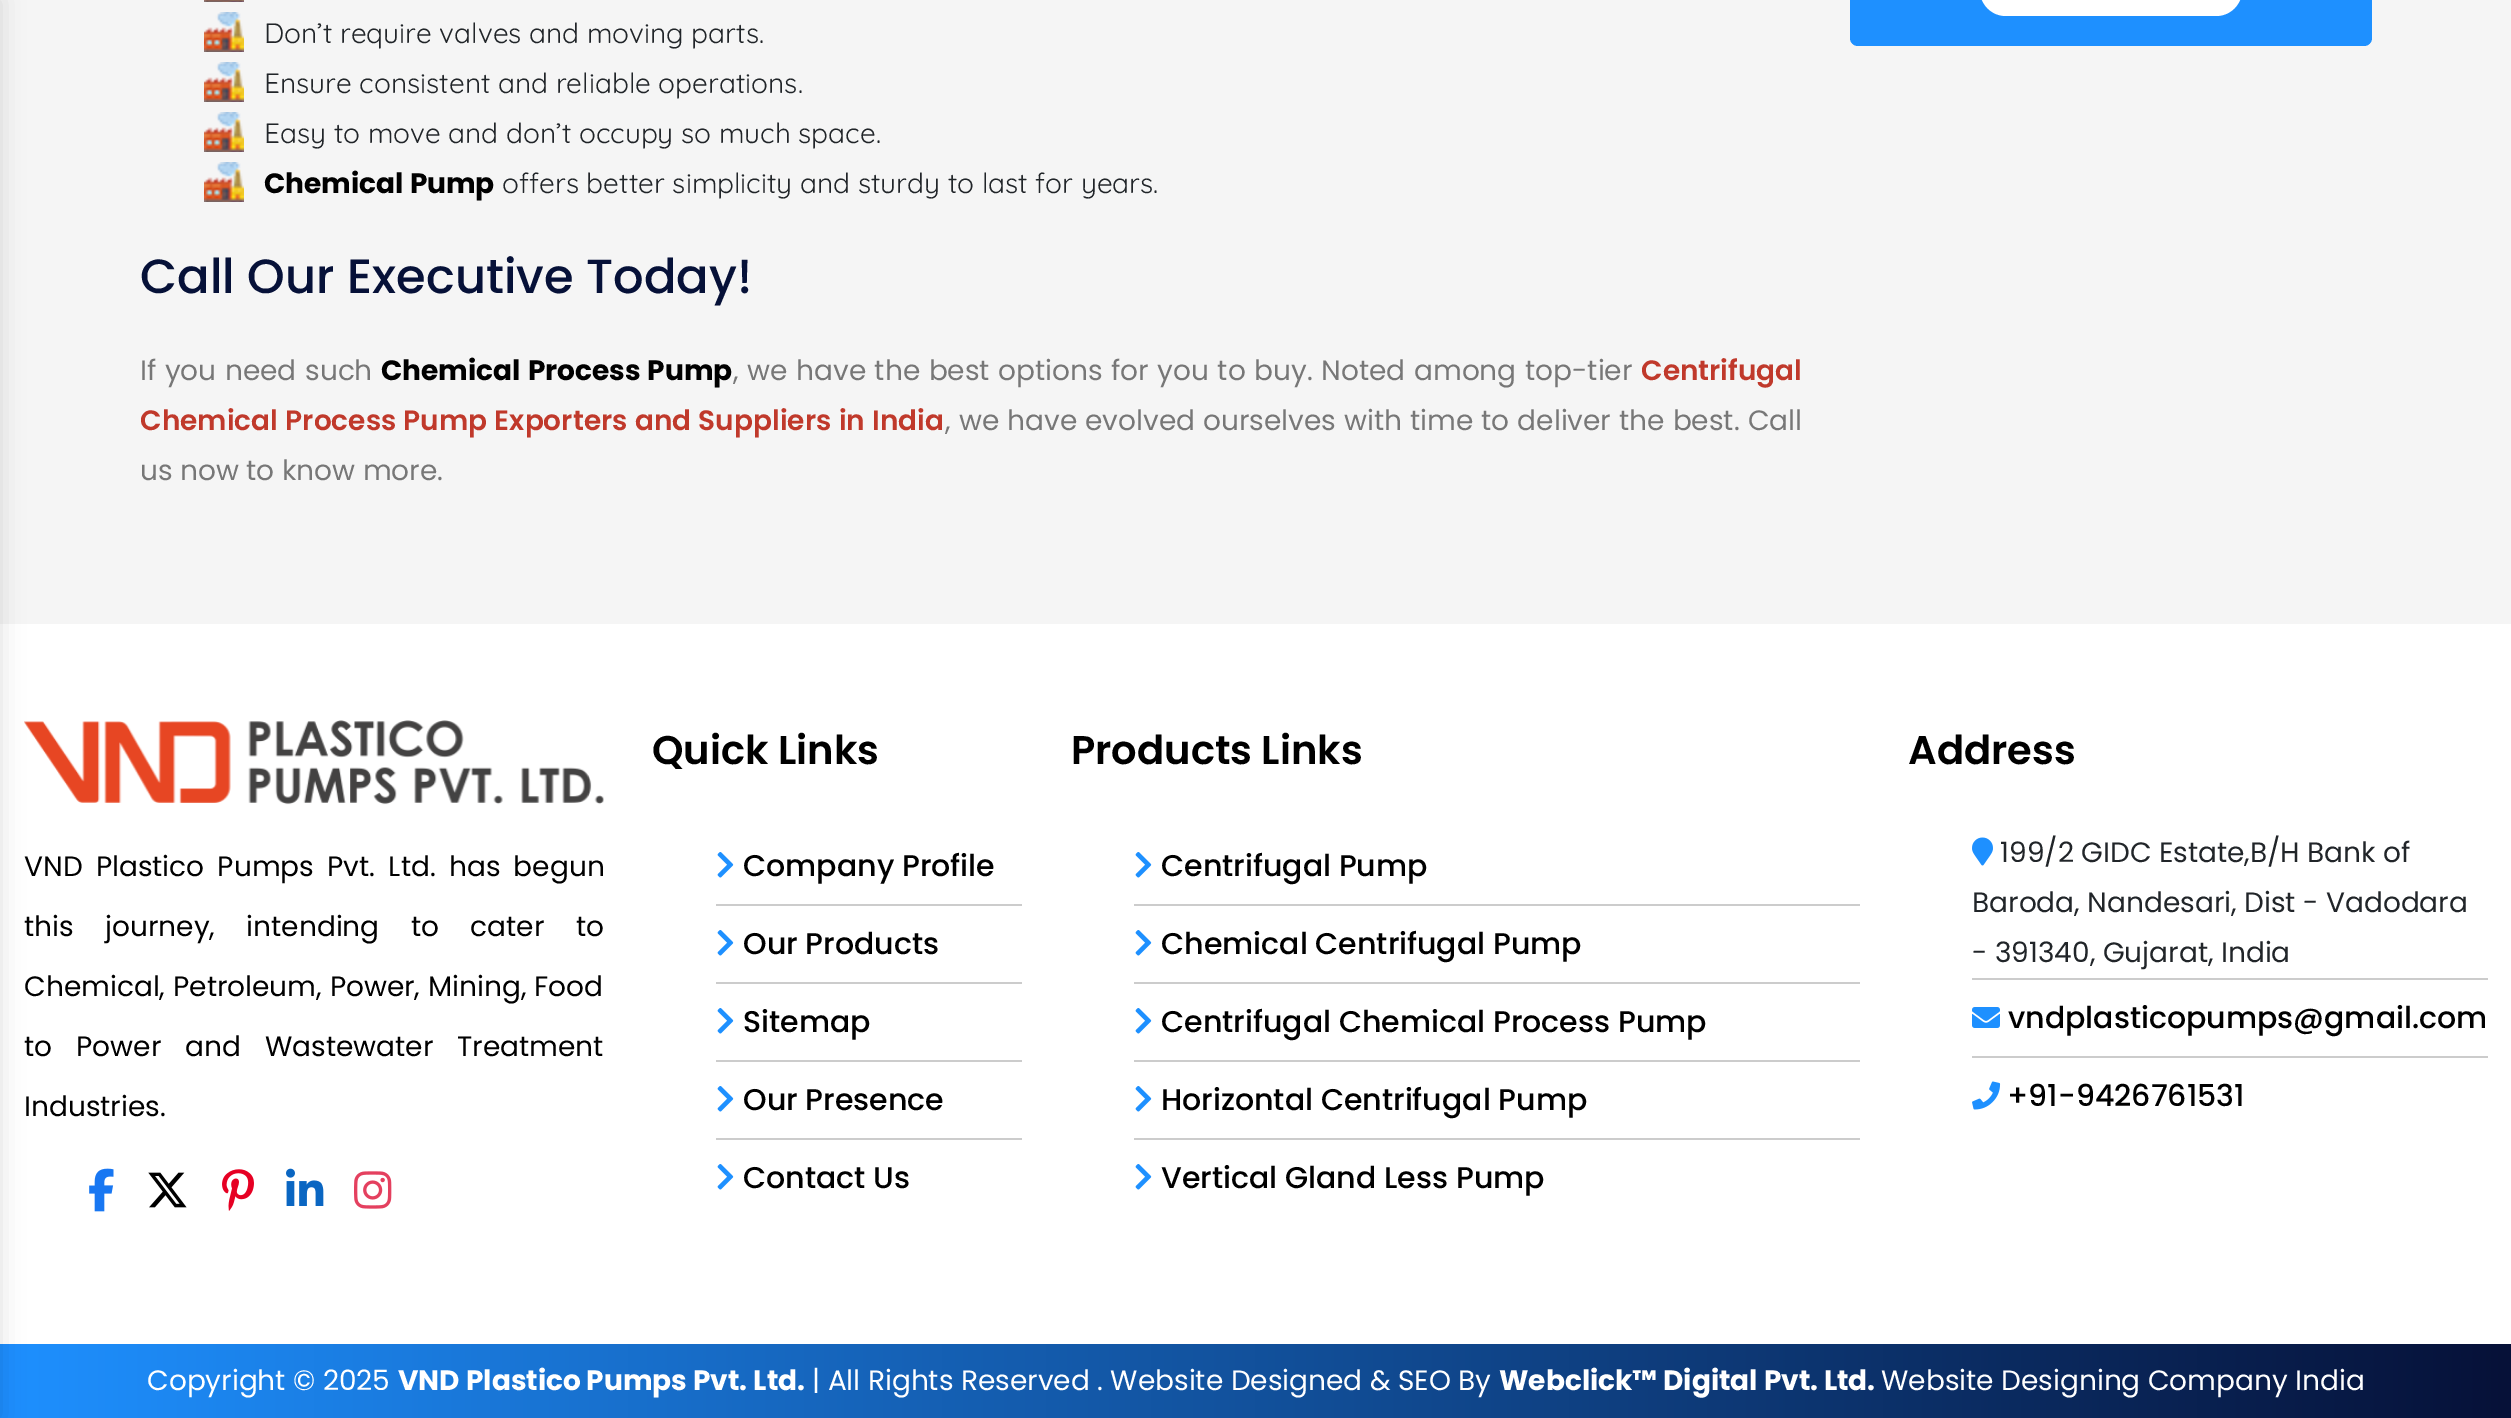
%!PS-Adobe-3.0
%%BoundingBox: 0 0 2511 1418
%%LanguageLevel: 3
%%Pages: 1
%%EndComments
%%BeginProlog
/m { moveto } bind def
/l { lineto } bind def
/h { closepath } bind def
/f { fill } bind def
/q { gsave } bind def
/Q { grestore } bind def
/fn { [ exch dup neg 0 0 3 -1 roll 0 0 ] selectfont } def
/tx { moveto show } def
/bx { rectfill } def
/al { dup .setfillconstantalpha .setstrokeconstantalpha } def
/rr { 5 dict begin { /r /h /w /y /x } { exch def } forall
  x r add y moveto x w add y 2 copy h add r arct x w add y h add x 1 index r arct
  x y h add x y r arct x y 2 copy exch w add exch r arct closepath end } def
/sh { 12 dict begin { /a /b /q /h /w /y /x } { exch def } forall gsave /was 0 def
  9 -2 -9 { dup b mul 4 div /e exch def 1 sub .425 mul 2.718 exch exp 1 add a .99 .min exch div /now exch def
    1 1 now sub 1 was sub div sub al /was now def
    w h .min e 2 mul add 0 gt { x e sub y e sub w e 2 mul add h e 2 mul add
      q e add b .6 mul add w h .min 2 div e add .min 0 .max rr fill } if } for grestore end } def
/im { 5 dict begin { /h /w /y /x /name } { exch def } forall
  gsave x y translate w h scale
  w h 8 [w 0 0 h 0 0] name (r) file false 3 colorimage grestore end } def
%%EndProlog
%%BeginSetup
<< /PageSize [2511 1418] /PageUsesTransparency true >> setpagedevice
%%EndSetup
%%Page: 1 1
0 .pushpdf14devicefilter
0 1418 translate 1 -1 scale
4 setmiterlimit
1 setgray
0 0 2511 1418 bx
0.961 setgray
0 0 2511 624 bx
(image2.raw) 24 720 580 85 im
q 0 1344 m 2511 1344 l 2511 1418 l 0 1418 l h clip newpath
<< /ShadingType 2 /ColorSpace /DeviceRGB /Coords [0 1381 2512 1381] /Extend [true true] /Function << /FunctionType 2 /Domain [0 1] /C0 [0.118 0.565 1] /C1 [0.024 0.067 0.22] /N 1 >> >> shfill Q
0 setgray
-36 0 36 1418 0 12 0.14 sh
0.118 0.565 1 setrgbcolor
1850 -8 522 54 8 rr f
1 setgray
1980 -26 262 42 26 rr f
(image0.raw) 204 0 40 2 im
(image1.raw) 204 12 40 40 im
/Quicksand-Regular 28 fn
0.129 0.145 0.161 setrgbcolor
(Don’t require valves and moving parts.) 264 43 tx
(image1.raw) 204 62 40 40 im
(Ensure consistent and reliable operations.) 264 93 tx
(image1.raw) 204 112 40 40 im
(Easy to move and don’t occupy so much space.) 264 143 tx
(image1.raw) 204 162 40 40 im
/Poppins-Bold 28 fn
0 setgray
(Chemical Pump) 264 193 tx
/Quicksand-Regular 28 fn
0.129 0.145 0.161 setrgbcolor
(offers better simplicity and sturdy to last for years.) 502 193 tx
/Poppins-Medium 48 fn
0.024 0.067 0.22 setrgbcolor
(Call Our Executive Today!) 140 293 tx
/Poppins-Regular 28 fn
0.467 setgray
140 380 m 1.1 0 32 (If you need such) widthshow
/Poppins-Bold 28 fn
0 setgray
381 380 m 1.1 0 32 (Chemical Process Pump) widthshow
/Poppins-Regular 28 fn
0.467 setgray
733 380 m 1.1 0 32 (, we have the best options for you to buy. Noted among top-tier) widthshow
/Poppins-SemiBold 28 fn
0.753 0.224 0.169 setrgbcolor
(Centrifugal) 1641 380 tx
140 430 m 0.6 0 32 (Chemical Process Pump Exporters and Suppliers in India) widthshow
/Poppins-Regular 28 fn
0.467 setgray
945 430 m 0.6 0 32 (, we have evolved ourselves with time to deliver the best. Call) widthshow
(us now to know more.) 140 480 tx
0 setgray
24 876 m 5.75 0 32 (VND Plastico Pumps Pvt. Ltd. has begun) widthshow
24 936 m 24 0 32 (this journey, intending to cater to) widthshow
24 996 m 0.5 0 32 (Chemical, Petroleum, Power, Mining, Food) widthshow
24 1056 m 16.5 0 32 (to Power and Wastewater Treatment) widthshow
(Industries.) 24 1116 tx
(image3.raw) 89 1168 25 44 im
(image4.raw) 148 1172 39 36 im
(image5.raw) 222 1169 32 42 im
(image6.raw) 286 1168 38 38 im
(image7.raw) 354 1171 38 38 im
/Poppins-SemiBold 40 fn
(Quick Links) 652 764 tx
0.8 setgray
716 904 306 2 bx
(image8.raw) 717 852 17 26 im
/Poppins-Medium 30 fn
0 setgray
(Company Profile) 743 876 tx
0.8 setgray
716 982 306 2 bx
(image8.raw) 717 930 17 26 im
0 setgray
(Our Products) 743 954 tx
0.8 setgray
716 1060 306 2 bx
(image8.raw) 717 1008 17 26 im
0 setgray
(Sitemap) 743 1032 tx
0.8 setgray
716 1138 306 2 bx
(image8.raw) 717 1086 17 26 im
0 setgray
(Our Presence) 743 1110 tx
(image8.raw) 717 1164 17 26 im
(Contact Us) 743 1188 tx
/Poppins-SemiBold 40 fn
(Products Links) 1071 764 tx
0.8 setgray
1134 904 726 2 bx
(image8.raw) 1135 852 17 26 im
/Poppins-Medium 30 fn
0 setgray
(Centrifugal Pump) 1161 876 tx
0.8 setgray
1134 982 726 2 bx
(image8.raw) 1135 930 17 26 im
0 setgray
(Chemical Centrifugal Pump) 1161 954 tx
0.8 setgray
1134 1060 726 2 bx
(image8.raw) 1135 1008 17 26 im
0 setgray
(Centrifugal Chemical Process Pump) 1161 1032 tx
0.8 setgray
1134 1138 726 2 bx
(image8.raw) 1135 1086 17 26 im
0 setgray
(Horizontal Centrifugal Pump) 1161 1110 tx
(image8.raw) 1135 1164 17 26 im
(Vertical Gland Less Pump) 1161 1188 tx
/Poppins-SemiBold 40 fn
(Address) 1908 764 tx
0.8 setgray
1972 978 516 2 bx
(image9.raw) 1972 837 21 29 im
/Poppins-Regular 28 fn
0.129 0.145 0.161 setrgbcolor
(199/2 GIDC Estate,B/H Bank of) 2000 862 tx
(Baroda, Nandesari, Dist - Vadodara) 1972 912 tx
(- 391340, Gujarat, India) 1972 962 tx
0.8 setgray
1972 1056 516 2 bx
(image10.raw) 1972 1007 28 21 im
/Poppins-Medium 30 fn
0 setgray
(vndplasticopumps@gmail.com) 2008 1028 tx
(image11.raw) 1972 1081 29 29 im
(+91-9426761531) 2007 1106 tx
/Poppins-Regular 28 fn
1 setgray
(Copyright © 2025) 147 1390 tx
/Poppins-Bold 28 fn
(VND Plastico Pumps Pvt. Ltd.) 398 1390 tx
/Poppins-Regular 28 fn
(| All Rights Reserved . Website Designed & SEO By) 812 1390 tx
/Poppins-Bold 28 fn
(Webclick™ Digital Pvt. Ltd.) 1499 1390 tx
/Poppins-Regular 28 fn
(Website Designing Company India) 1881 1390 tx
.poppdf14devicefilter showpage
%%EOF
